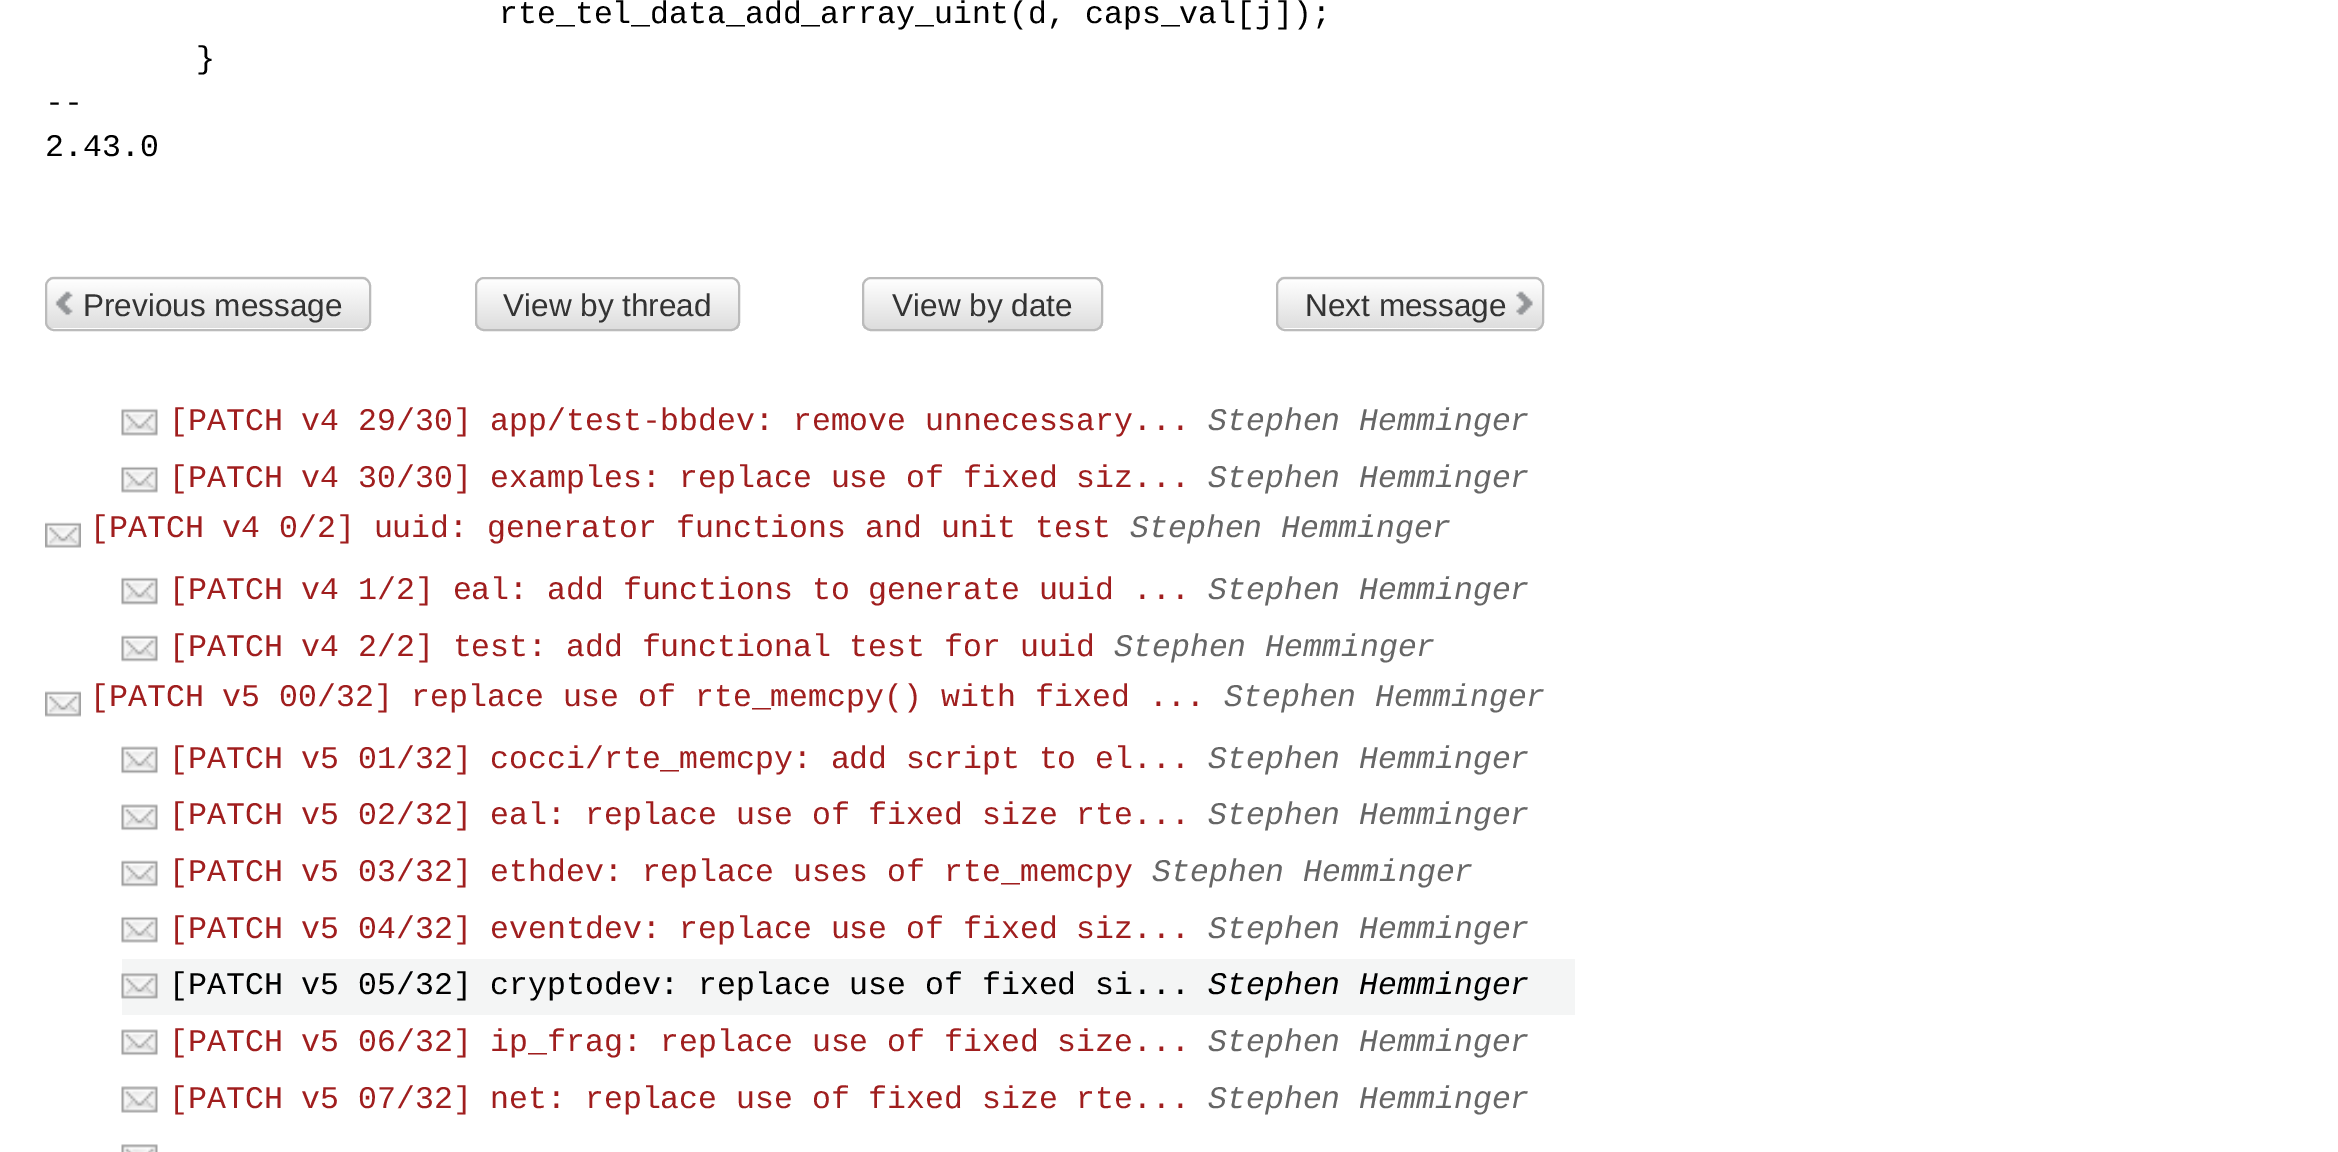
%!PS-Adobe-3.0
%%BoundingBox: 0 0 2338 1152
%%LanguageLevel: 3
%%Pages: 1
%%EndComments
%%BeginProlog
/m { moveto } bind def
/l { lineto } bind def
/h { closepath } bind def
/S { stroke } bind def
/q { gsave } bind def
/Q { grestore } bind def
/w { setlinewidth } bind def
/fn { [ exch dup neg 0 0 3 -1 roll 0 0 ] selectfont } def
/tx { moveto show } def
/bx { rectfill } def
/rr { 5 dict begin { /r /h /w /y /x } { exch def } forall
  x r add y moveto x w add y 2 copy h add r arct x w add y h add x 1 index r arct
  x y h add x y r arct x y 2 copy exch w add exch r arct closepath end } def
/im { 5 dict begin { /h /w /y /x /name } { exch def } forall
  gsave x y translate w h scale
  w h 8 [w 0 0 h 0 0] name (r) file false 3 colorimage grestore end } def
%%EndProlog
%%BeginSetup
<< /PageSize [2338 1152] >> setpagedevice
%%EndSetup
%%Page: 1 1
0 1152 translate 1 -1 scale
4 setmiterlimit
1 setgray
0 0 2338 1152 bx
/LiberationMono-Regular 31.5 fn
0 setgray
(rte_tel_data_add_array_uint\(d, caps_val[j]\);) 499 23 tx
(}) 196 68 tx
(--) 45 112 tx
(2.43.0) 45 156 tx
(image0.raw) 45 276 326 54 im
0.733 setgray
2 w
46 278 324 52 8 rr S
/LiberationSans-Regular 31.5 fn
0.2 setgray
(Previous message) 83 316 tx
q
475 277 265 54 9 rr clip newpath
q 475 279 m 740 279 l 740 329 l 475 329 l h clip newpath
<< /ShadingType 2 /ColorSpace /DeviceRGB /Coords [608 279 608 329] /Extend [true true] /Function << /FunctionType 2 /Domain [0 1] /C0 [1 1 1] /C1 [0.867 0.867 0.867] /N 1 >> >> shfill Q
Q
0.733 setgray
476 278 263 52 8 rr S
0.2 setgray
(View by thread) 503 316 tx
q
862 277 241 54 9 rr clip newpath
q 862 279 m 1103 279 l 1103 329 l 862 329 l h clip newpath
<< /ShadingType 2 /ColorSpace /DeviceRGB /Coords [982 279 982 329] /Extend [true true] /Function << /FunctionType 2 /Domain [0 1] /C0 [1 1 1] /C1 [0.867 0.867 0.867] /N 1 >> >> shfill Q
Q
0.733 setgray
863 278 239 52 8 rr S
0.2 setgray
(View by date) 892 316 tx
(image1.raw) 1276 276 267 54 im
0.733 setgray
1277 278 266 52 8 rr S
0.2 setgray
(Next message) 1305 316 tx
(image2.raw) 121 408 37 28 im
/LiberationMono-Regular 31.5 fn
0.627 0.118 0.118 setrgbcolor
([PATCH v4 29/30] app/test-bbdev: remove unnecessary...) 169 430 tx
/LiberationMono-Italic 31.5 fn
0.4 setgray
(Stephen Hemminger) 1208 430 tx
(image3.raw) 121 466 37 27 im
/LiberationMono-Regular 31.5 fn
0.627 0.118 0.118 setrgbcolor
([PATCH v4 30/30] examples: replace use of fixed siz...) 169 487 tx
/LiberationMono-Italic 31.5 fn
0.4 setgray
(Stephen Hemminger) 1208 487 tx
(image4.raw) 45 522 36 26 im
/LiberationMono-Regular 31.5 fn
0.627 0.118 0.118 setrgbcolor
([PATCH v4 0/2] uuid: generator functions and unit test) 90 537 tx
/LiberationMono-Italic 31.5 fn
0.4 setgray
(Stephen Hemminger) 1130 537 tx
(image5.raw) 121 577 37 28 im
/LiberationMono-Regular 31.5 fn
0.627 0.118 0.118 setrgbcolor
([PATCH v4 1/2] eal: add functions to generate uuid ...) 169 599 tx
/LiberationMono-Italic 31.5 fn
0.4 setgray
(Stephen Hemminger) 1208 599 tx
(image6.raw) 121 635 37 27 im
/LiberationMono-Regular 31.5 fn
0.627 0.118 0.118 setrgbcolor
([PATCH v4 2/2] test: add functional test for uuid) 169 656 tx
/LiberationMono-Italic 31.5 fn
0.4 setgray
(Stephen Hemminger) 1114 656 tx
(image7.raw) 45 691 36 26 im
/LiberationMono-Regular 31.5 fn
0.627 0.118 0.118 setrgbcolor
([PATCH v5 00/32] replace use of rte_memcpy\(\) with fixed ...) 90 706 tx
/LiberationMono-Italic 31.5 fn
0.4 setgray
(Stephen Hemminger) 1224 706 tx
(image8.raw) 121 746 37 28 im
/LiberationMono-Regular 31.5 fn
0.627 0.118 0.118 setrgbcolor
([PATCH v5 01/32] cocci/rte_memcpy: add script to el...) 169 768 tx
/LiberationMono-Italic 31.5 fn
0.4 setgray
(Stephen Hemminger) 1208 768 tx
(image9.raw) 121 804 37 27 im
/LiberationMono-Regular 31.5 fn
0.627 0.118 0.118 setrgbcolor
([PATCH v5 02/32] eal: replace use of fixed size rte...) 169 824 tx
/LiberationMono-Italic 31.5 fn
0.4 setgray
(Stephen Hemminger) 1208 824 tx
(image6.raw) 121 860 37 27 im
/LiberationMono-Regular 31.5 fn
0.627 0.118 0.118 setrgbcolor
([PATCH v5 03/32] ethdev: replace uses of rte_memcpy) 169 881 tx
/LiberationMono-Italic 31.5 fn
0.4 setgray
(Stephen Hemminger) 1152 881 tx
(image3.raw) 121 916 37 27 im
/LiberationMono-Regular 31.5 fn
0.627 0.118 0.118 setrgbcolor
([PATCH v5 04/32] eventdev: replace use of fixed siz...) 169 938 tx
/LiberationMono-Italic 31.5 fn
0.4 setgray
(Stephen Hemminger) 1208 938 tx
0.957 0.961 0.961 setrgbcolor
122 959 1453 56 bx
(image10.raw) 121 973 37 26 im
/LiberationMono-Regular 31.5 fn
0 setgray
([PATCH v5 05/32] cryptodev: replace use of fixed si...) 169 994 tx
/LiberationMono-Italic 31.5 fn
(Stephen Hemminger) 1208 994 tx
(image9.raw) 121 1029 37 27 im
/LiberationMono-Regular 31.5 fn
0.627 0.118 0.118 setrgbcolor
([PATCH v5 06/32] ip_frag: replace use of fixed size...) 169 1051 tx
/LiberationMono-Italic 31.5 fn
0.4 setgray
(Stephen Hemminger) 1208 1051 tx
(image11.raw) 121 1086 37 27 im
/LiberationMono-Regular 31.5 fn
0.627 0.118 0.118 setrgbcolor
([PATCH v5 07/32] net: replace use of fixed size rte...) 169 1108 tx
/LiberationMono-Italic 31.5 fn
0.4 setgray
(Stephen Hemminger) 1208 1108 tx
(image12.raw) 121 1144 37 8 im
showpage
%%EOF
